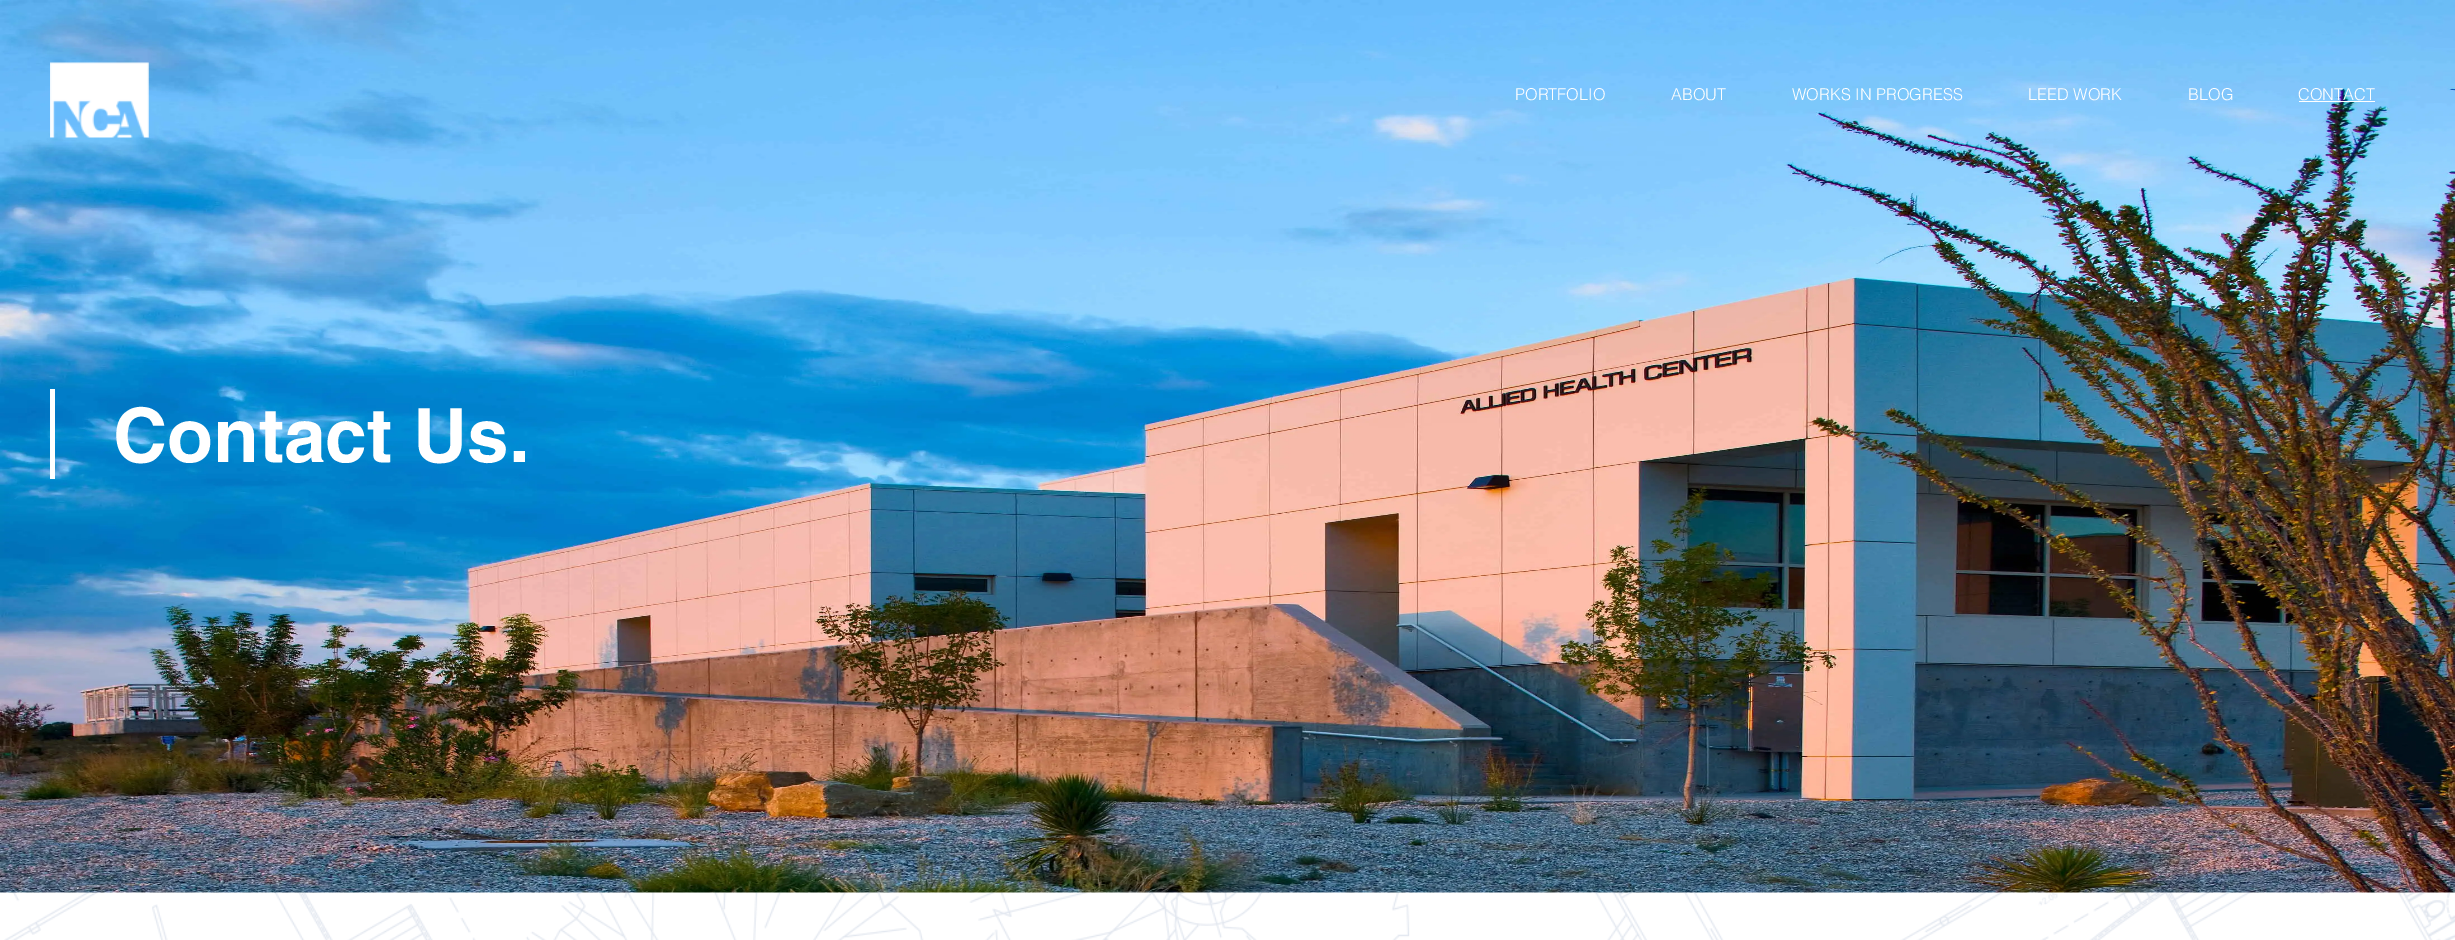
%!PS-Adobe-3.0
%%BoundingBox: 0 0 2455 940
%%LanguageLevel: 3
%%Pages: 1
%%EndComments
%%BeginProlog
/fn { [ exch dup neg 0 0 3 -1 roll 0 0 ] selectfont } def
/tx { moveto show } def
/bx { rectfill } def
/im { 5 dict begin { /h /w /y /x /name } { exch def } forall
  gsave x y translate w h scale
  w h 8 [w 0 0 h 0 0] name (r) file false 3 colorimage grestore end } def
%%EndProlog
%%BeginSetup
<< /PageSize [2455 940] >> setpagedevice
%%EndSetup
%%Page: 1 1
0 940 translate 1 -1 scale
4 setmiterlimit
1 setgray
0 0 2455 940 bx
(image1.raw) 0 0 2455 893 im
(image0.raw) 50 62 99 76 im
/Helvetica-Light 16.25 fn
(PORTFOLIO) 1515 100 tx
(ABOUT) 1671 100 tx
(WORKS IN PROGRESS) 1792 100 tx
(LEED WORK) 2028 100 tx
(BLOG) 2188 100 tx
(CONTACT) 2298 100 tx
2299 101 76 1 bx
50 389 5 90 bx
/Helvetica-Bold 75 fn
(Contact Us.) 113 462 tx
(image2.raw) 4 892 2451 48 im
showpage
%%EOF
